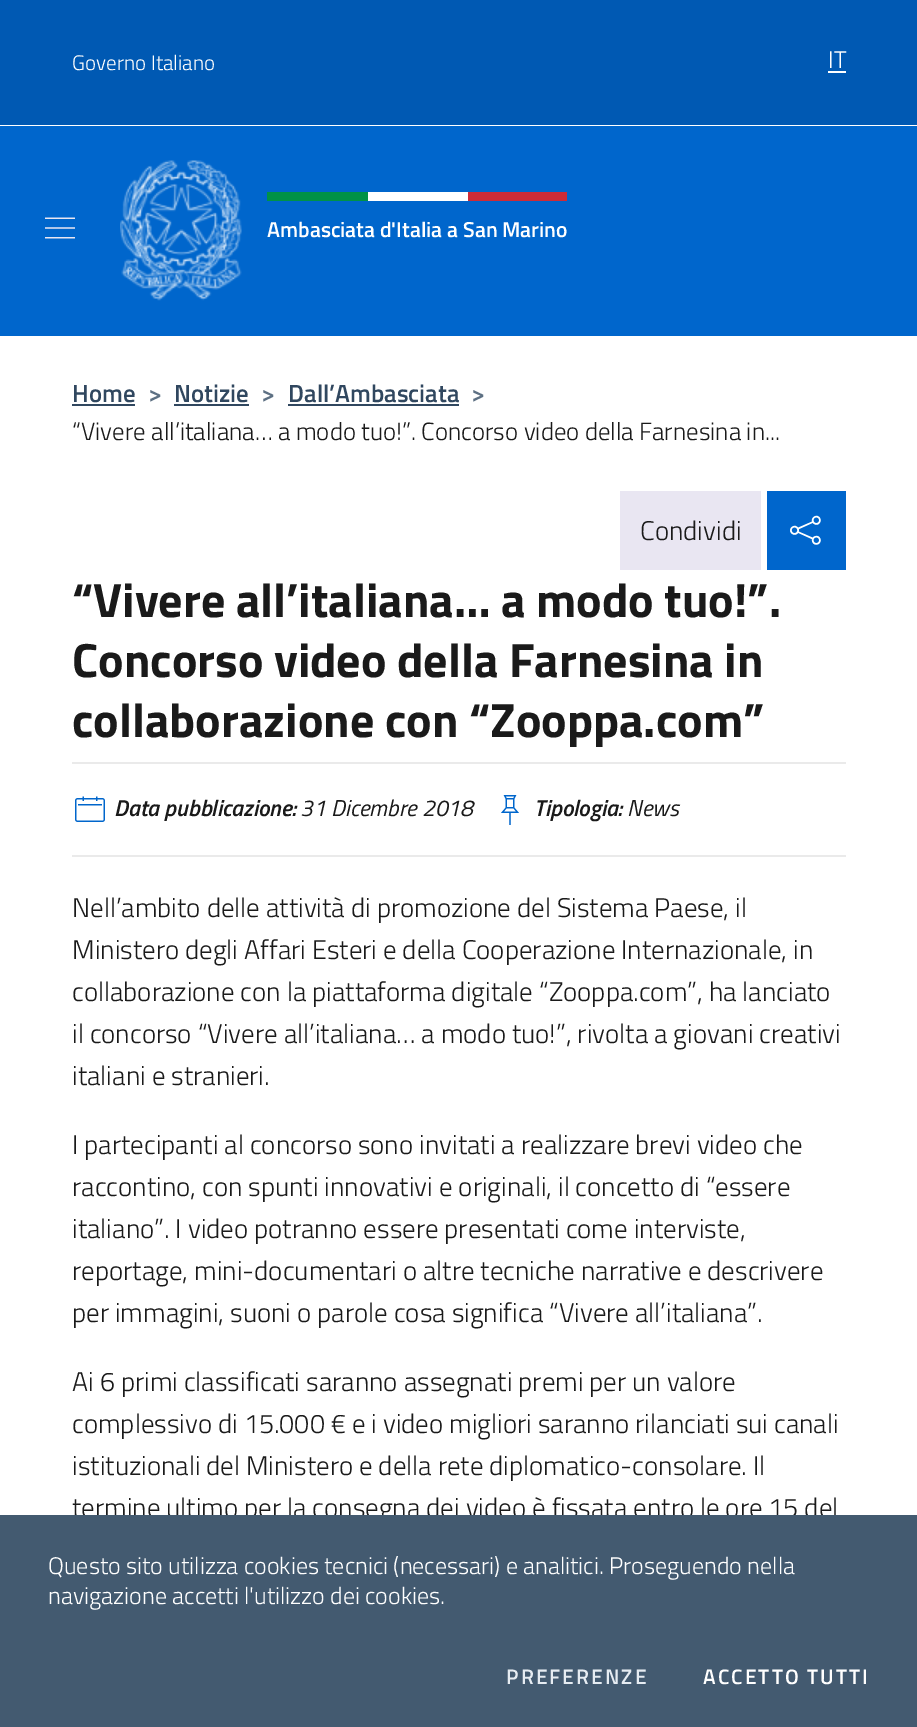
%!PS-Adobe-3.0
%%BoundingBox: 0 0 917 1727
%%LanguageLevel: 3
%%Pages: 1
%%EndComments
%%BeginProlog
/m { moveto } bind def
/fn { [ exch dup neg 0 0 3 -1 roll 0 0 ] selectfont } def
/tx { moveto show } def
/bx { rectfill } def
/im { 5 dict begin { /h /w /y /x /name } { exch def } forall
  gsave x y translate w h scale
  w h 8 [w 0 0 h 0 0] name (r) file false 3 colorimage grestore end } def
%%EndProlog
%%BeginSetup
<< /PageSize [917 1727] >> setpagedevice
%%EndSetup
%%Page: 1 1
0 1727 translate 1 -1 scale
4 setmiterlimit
1 setgray
0 0 917 1727 bx
0 0.349 0.702 setrgbcolor
0 0 917 125 bx
/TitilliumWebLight-Light 21 fn
1 setgray
(Governo Italiano) 72 70 tx
/TitilliumWebLight-Light 24 fn
(IT) 828 68 tx
828 71 18 2 bx
0 0.4 0.8 setrgbcolor
0 126 917 210 bx
(image0.raw) 45 217 30 22 im
(image1.raw) 120 160 122 141 im
0 0.573 0.275 setrgbcolor
267 192 101 9 bx
1 setgray
368 192 100 9 bx
0.808 0.169 0.216 setrgbcolor
468 192 99 9 bx
/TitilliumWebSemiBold-SemiBold 21.6 fn
1 setgray
(Ambasciata d'Italia a San Marino) 267 237 tx
/TitilliumWebSemiBold-SemiBold 24.85 fn
0.188 0.278 0.373 setrgbcolor
(Home) 72 402 tx
72 404 63 2 bx
0.365 0.439 0.514 setrgbcolor
(>) 148 402 tx
0.188 0.278 0.373 setrgbcolor
(Notizie) 174 402 tx
174 404 75 2 bx
0.365 0.439 0.514 setrgbcolor
(>) 261 402 tx
0.188 0.278 0.373 setrgbcolor
(Dall’Ambasciata) 288 402 tx
288 404 171 2 bx
0.365 0.439 0.514 setrgbcolor
(>) 471 402 tx
/TitilliumWebLight-Light 24.85 fn
0.102 setgray
(“Vivere all’italiana… a modo tuo!”. Concorso video della Farnesina in...) 72 440 tx
0 0.4 0.8 setrgbcolor
767 491 79 79 bx
0.914 0.902 0.949 setrgbcolor
620 491 141 79 bx
/TitilliumWebLight-Light 27 fn
0.102 setgray
(Condividi) 640 540 tx
(image2.raw) 790 515 31 30 im
/TitilliumWeb-Bold 48 fn
(“Vivere all’italiana… a modo tuo!”.) 72 617 tx
(Concorso video della Farnesina in) 72 677 tx
(collaborazione con “Zooppa.com”) 72 737 tx
0.918 setgray
72 762 774 2 bx
72 855 774 2 bx
(image3.raw) 75 796 30 26 im
/TitilliumWebSemiBold-SemiBoldItalic 23 fn
0.102 setgray
(Data pubblicazione:) 114 816 tx
/TitilliumWeb-Italic 23 fn
(31 Dicembre 2018) 300 816 tx
(image4.raw) 501 795 18 30 im
/TitilliumWebSemiBold-SemiBoldItalic 23 fn
(Tipologia:) 534 816 tx
/TitilliumWeb-Italic 23 fn
(News) 627 816 tx
/TitilliumWebLight-Light 27 fn
(Nell’ambito delle attività di promozione del Sistema Paese, il) 72 917 tx
(Ministero degli Affari Esteri e della Cooperazione Internazionale, in) 72 959 tx
(collaborazione con la piattaforma digitale “Zooppa.com”, ha lanciato) 72 1001 tx
(il concorso “Vivere all’italiana… a modo tuo!”, rivolta a giovani creativi) 72 1043 tx
(italiani e stranieri.) 72 1085 tx
(I partecipanti al concorso sono invitati a realizzare brevi video che) 72 1154 tx
(raccontino, con spunti innovativi e originali, il concetto di “essere) 72 1196 tx
(italiano”. I video potranno essere presentati come interviste,) 72 1238 tx
(reportage, mini-documentari o altre tecniche narrative e descrivere) 72 1280 tx
(per immagini, suoni o parole cosa significa “Vivere all’italiana”.) 72 1322 tx
(Ai 6 primi classificati saranno assegnati premi per un valore) 72 1391 tx
(complessivo di 15.000 € e i video migliori saranno rilanciati sui canali) 72 1433 tx
(istituzionali del Ministero e della rete diplomatico-consolare. Il) 72 1475 tx
(termine ultimo per la consegna dei video è fissata entro le ore 15 del) 72 1517 tx
0.263 0.353 0.439 setrgbcolor
0 1515 917 212 bx
/TitilliumWebLight-Light 24 fn
1 setgray
(Questo sito utilizza cookies tecnici \(necessari\) e analitici. Proseguendo nella) 48 1574 tx
(navigazione accetti l'utilizzo dei cookies.) 48 1604 tx
/TitilliumWebSemiBold-SemiBold 21 fn
0.902 0.925 0.949 setrgbcolor
506 1684 m 2.1 0 (PREFERENZE) ashow
1 setgray
703 1684 m 2.1 0 (ACCETTO TUTTI) ashow
showpage
%%EOF
